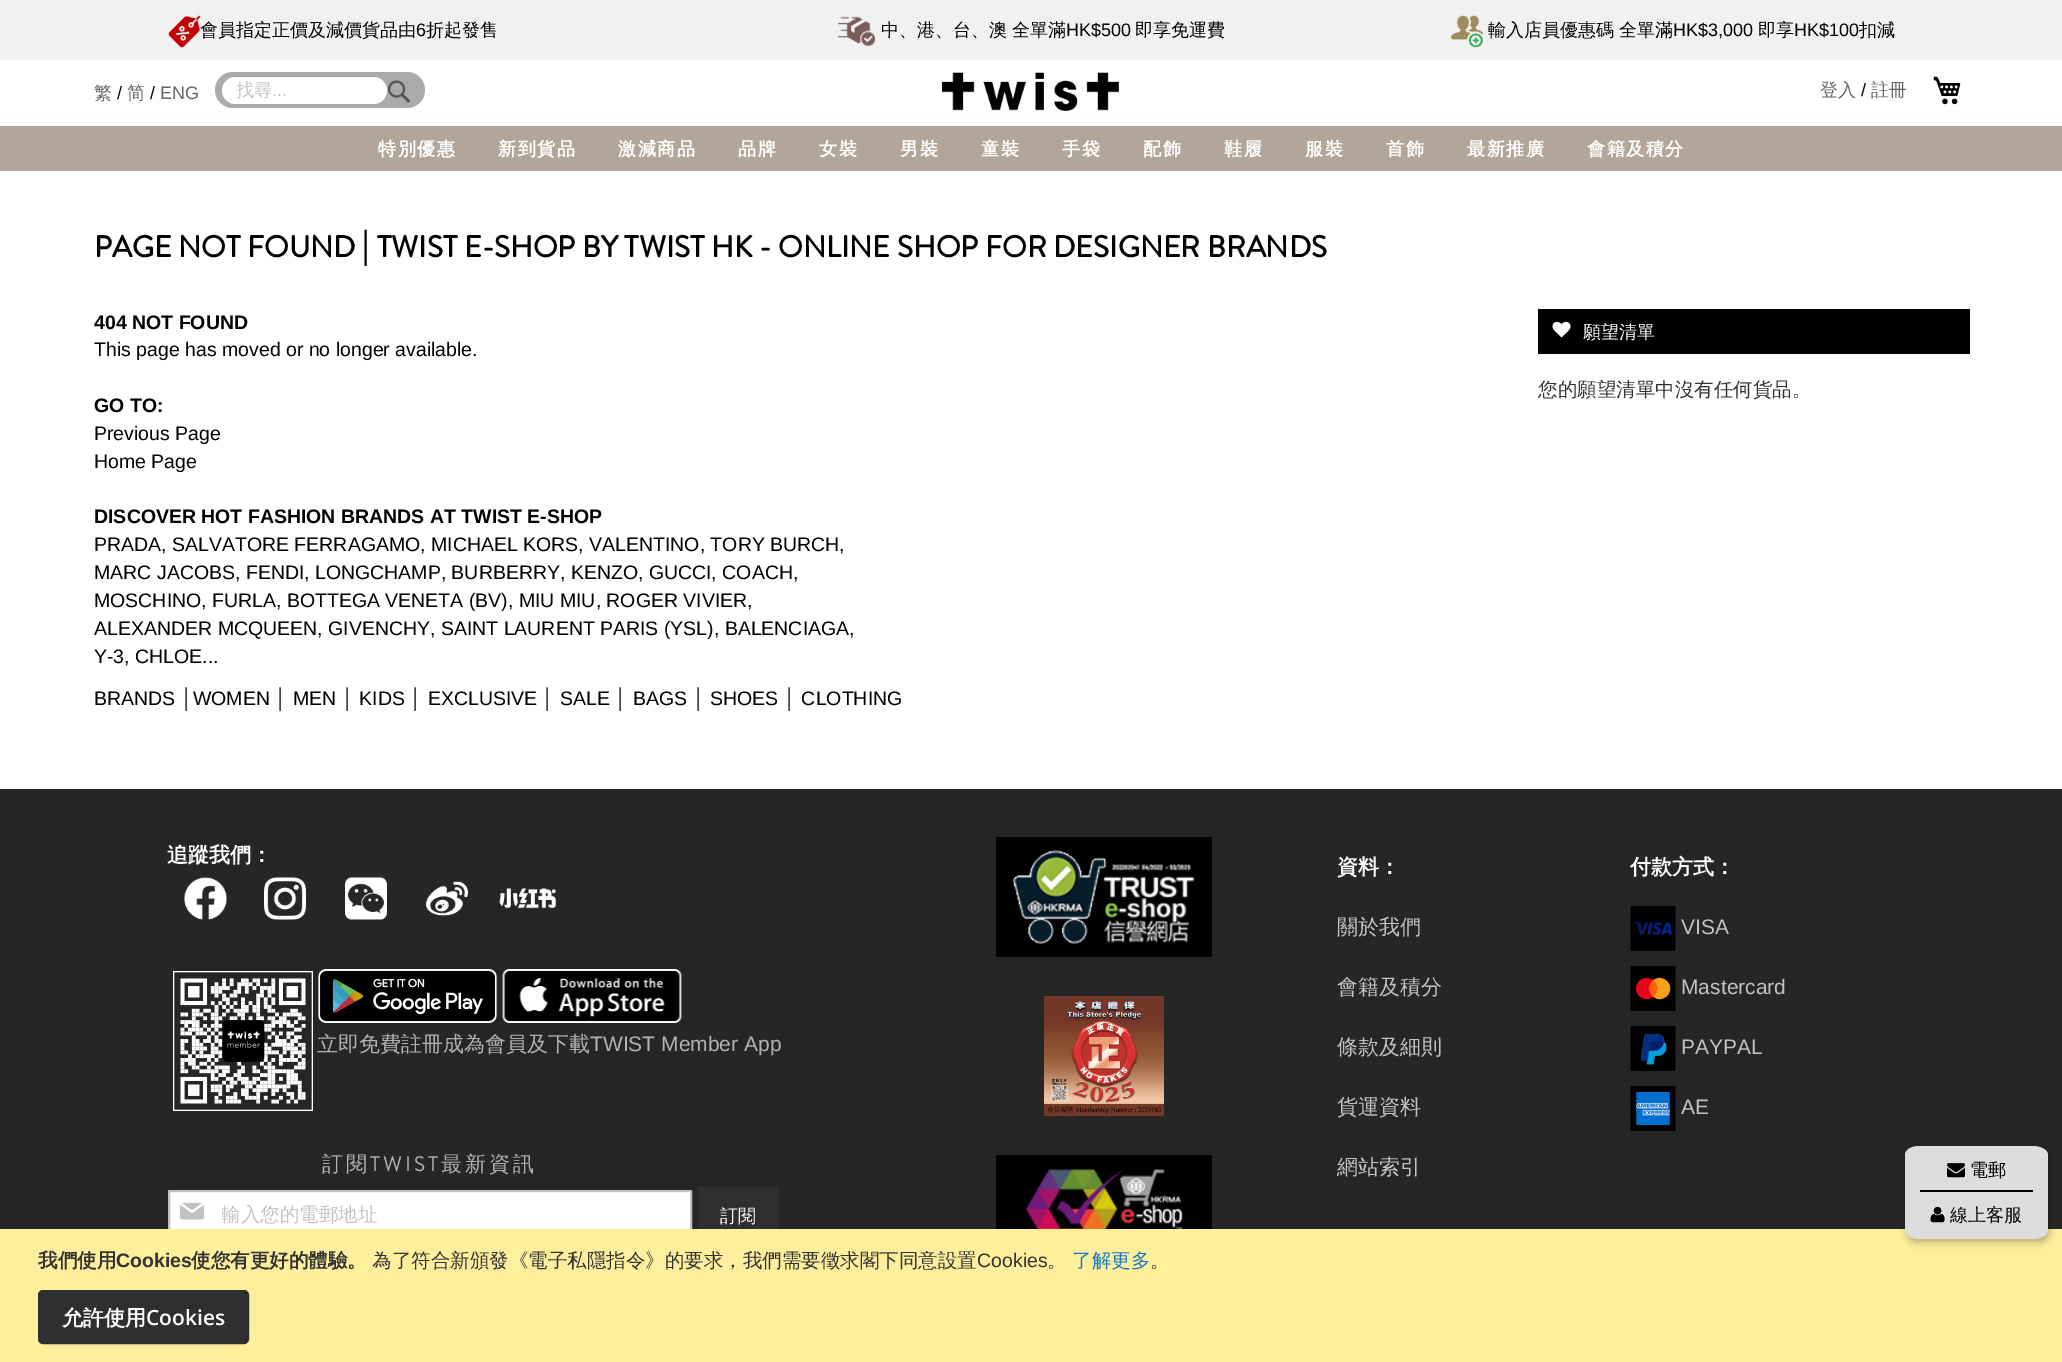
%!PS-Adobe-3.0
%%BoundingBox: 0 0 2062 1362
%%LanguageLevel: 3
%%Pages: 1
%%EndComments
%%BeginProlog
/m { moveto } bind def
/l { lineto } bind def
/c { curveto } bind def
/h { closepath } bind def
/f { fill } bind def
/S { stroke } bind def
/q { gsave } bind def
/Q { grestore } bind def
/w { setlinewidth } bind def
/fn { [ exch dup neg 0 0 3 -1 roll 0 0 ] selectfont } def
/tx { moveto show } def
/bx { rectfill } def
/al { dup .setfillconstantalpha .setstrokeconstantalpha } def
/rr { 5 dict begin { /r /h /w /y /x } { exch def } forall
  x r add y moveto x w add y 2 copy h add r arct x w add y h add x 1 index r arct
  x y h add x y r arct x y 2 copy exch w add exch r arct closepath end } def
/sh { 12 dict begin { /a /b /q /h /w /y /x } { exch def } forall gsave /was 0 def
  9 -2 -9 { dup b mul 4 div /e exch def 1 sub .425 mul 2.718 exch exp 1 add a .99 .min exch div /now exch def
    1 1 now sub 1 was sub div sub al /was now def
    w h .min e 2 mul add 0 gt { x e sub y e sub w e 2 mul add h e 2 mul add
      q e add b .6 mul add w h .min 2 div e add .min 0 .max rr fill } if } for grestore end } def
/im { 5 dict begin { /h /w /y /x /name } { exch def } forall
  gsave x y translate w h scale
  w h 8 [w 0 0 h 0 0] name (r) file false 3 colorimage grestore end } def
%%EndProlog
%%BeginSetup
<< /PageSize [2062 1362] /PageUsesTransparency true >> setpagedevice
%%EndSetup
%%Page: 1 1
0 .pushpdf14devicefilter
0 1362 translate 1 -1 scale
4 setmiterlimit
1 setgray
0 0 2062 1362 bx
0.945 setgray
0 0 2062 60 bx
(image0.raw) 168 15 33 33 im
/WenQuanYiZenHei-Medium 18 fn
0 setgray
(會員指定正價及減價貨品由) 200 36 tx
/LiberationSans-Regular 18 fn
(6) 416 36 tx
/WenQuanYiZenHei-Medium 18 fn
(折起發售) 426 36 tx
(image1.raw) 837 16 39 31 im
(中、港、台、澳 全單滿) 881 36 tx
/LiberationSans-Regular 18 fn
(HK$500) 1066 36 tx
/WenQuanYiZenHei-Medium 18 fn
(即享免運費) 1135 36 tx
(image2.raw) 1450 15 34 33 im
(輸入店員優惠碼 全單滿) 1488 36 tx
/LiberationSans-Regular 18 fn
(HK$3,000) 1673 36 tx
/WenQuanYiZenHei-Medium 18 fn
(即享) 1758 36 tx
/LiberationSans-Regular 18 fn
(HK$100) 1794 36 tx
/WenQuanYiZenHei-Medium 18 fn
(扣減) 1859 36 tx
0.4 setgray
(繁) 94 99 tx
/LiberationSans-Regular 18 fn
0 setgray
(/) 117 99 tx
/WenQuanYiZenHei-Medium 18 fn
0.4 setgray
(简) 127 99 tx
/LiberationSans-Regular 18 fn
0 setgray
(/) 150 99 tx
0.4 setgray
(ENG) 160 99 tx
0.667 setgray
215 72 210 36 18 rr f
1 setgray
222 77 165 27 13.5 rr f
q
237 78 98 26 rectclip
/WenQuanYiZenHei-Medium 18 fn
0.761 setgray
(找尋) 236 96 tx
Q
0.761 setgray
(...) 272 96 tx
(image3.raw) 388 80 22 23 im
(image4.raw) 942 72 177 39 im
/WenQuanYiZenHei-Medium 18 fn
0.4 setgray
(登入) 1820 96 tx
/LiberationSans-Regular 18 fn
0 setgray
(/) 1861 96 tx
/WenQuanYiZenHei-Medium 18 fn
0.4 setgray
(註冊) 1871 96 tx
(image5.raw) 1933 76 28 29 im
0.698 0.651 0.608 setrgbcolor
0 126 2062 45 bx
/WenQuanYiZenHei-Bold 18 fn
1 setgray
378 155 m 1.5 0 (特別優惠) ashow
498 155 m 1.5 0 (新到貨品) ashow
618 155 m 1.5 0 (激減商品) ashow
738 155 m 1.5 0 (品牌) ashow
819 155 m 1.5 0 (女裝) ashow
900 155 m 1.5 0 (男裝) ashow
981 155 m 1.5 0 (童裝) ashow
1062 155 m 1.5 0 (手袋) ashow
1143 155 m 1.5 0 (配飾) ashow
1224 155 m 1.5 0 (鞋履) ashow
1305 155 m 1.5 0 (服裝) ashow
1386 155 m 1.5 0 (首飾) ashow
1467 155 m 1.5 0 (最新推廣) ashow
1587 155 m 1.5 0 (會籍及積分) ashow
/BrandonGrotesque-Bold 30 fn
0 setgray
(PAGE NOT FOUND) 94 257 tx
/LiberationSerif-Bold 30 fn
(│) 355 257 tx
/BrandonGrotesque-Bold 30 fn
(TWIST E-SHOP BY TWIST HK - ONLINE SHOP FOR DESIGNER BRANDS) 377 257 tx
/LiberationSans-Bold 19.5 fn
(404 NOT FOUND) 94 329 tx
/LiberationSans-Regular 19.5 fn
(This page has moved or no longer available.) 94 356 tx
/LiberationSans-Bold 19.5 fn
(GO TO:) 94 412 tx
/LiberationSans-Regular 19.5 fn
(Previous Page) 94 440 tx
(Home Page) 94 468 tx
/LiberationSans-Bold 19.5 fn
(DISCOVER HOT FASHION BRANDS AT TWIST E-SHOP) 94 523 tx
/LiberationSans-Regular 19.5 fn
(PRADA, SALVATORE FERRAGAMO, MICHAEL KORS, VALENTINO, TORY BURCH,) 94 551 tx
(MARC JACOBS, FENDI, LONGCHAMP, BURBERRY, KENZO, GUCCI, COACH,) 94 579 tx
(MOSCHINO, FURLA, BOTTEGA VENETA \(BV\), MIU MIU, ROGER VIVIER,) 94 607 tx
(ALEXANDER MCQUEEN, GIVENCHY, SAINT LAURENT PARIS \(YSL\), BALENCIAGA,) 94 635 tx
(Y-3, CHLOE...) 94 663 tx
(BRANDS │WOMEN │ MEN │ KIDS │ EXCLUSIVE │ SALE │ BAGS │ SHOES │ CLOTHING) 94 705 tx
1538 309 432 45 bx
(image6.raw) 1552 321 19 17 im
/WenQuanYiZenHei-Medium 18 fn
1 setgray
(願望清單) 1583 338 tx
/WenQuanYiZenHei-Medium 19.5 fn
0.2 setgray
(您的願望清單中沒有任何貨品。) 1538 396 tx
0.149 setgray
0 789 2062 440 bx
/WenQuanYiZenHei-Bold 21 fn
1 setgray
(追蹤我們：) 167 862 tx
(image7.raw) 184 877 43 43 im
(image8.raw) 264 877 42 43 im
(image9.raw) 345 877 42 43 im
(image10.raw) 426 881 42 35 im
(image11.raw) 499 888 57 21 im
(image12.raw) 173 971 140 140 im
(image13.raw) 318 969 179 54 im
(image14.raw) 502 969 180 54 im
/WenQuanYiZenHei-Medium 21 fn
0.698 setgray
(立即免費註冊成為會員及下載) 317 1051 tx
/LiberationSans-Regular 21 fn
(TWIST Member App) 590 1051 tx
/WenQuanYiZenHei-Medium 21 fn
322 1171 m 3 0 (訂閱) ashow
/BrandonGrotesque-Regular 21 fn
370 1171 m 3 0 (TWIST) ashow
/WenQuanYiZenHei-Medium 21 fn
441 1171 m 3 0 (最新資訊) ashow
1 setgray
170 1192 520 37 bx
0.761 setgray
2 w
169 1191 522 46 0.5 rr S
(image15.raw) 180 1202 24 18 im
q
222 1200 455 29 rectclip
/WenQuanYiZenHei-Medium 19.5 fn
(輸入您的電郵地址) 221 1221 tx
Q
0.184 setgray
698 1187 81 42 bx
/WenQuanYiZenHei-Medium 18 fn
1 setgray
(訂閱) 720 1222 tx
(image16.raw) 996 837 216 120 im
(image17.raw) 1044 996 120 120 im
(image18.raw) 996 1155 216 74 im
/WenQuanYiZenHei-Bold 21 fn
(資料：) 1337 874 tx
/WenQuanYiZenHei-Medium 21 fn
0.761 setgray
(關於我們) 1337 934 tx
(會籍及積分) 1337 994 tx
(條款及細則) 1337 1054 tx
(貨運資料) 1337 1114 tx
(網站索引) 1337 1174 tx
/WenQuanYiZenHei-Bold 21 fn
1 setgray
(付款方式：) 1630 874 tx
(image19.raw) 1630 906 46 45 im
/LiberationSans-Regular 21 fn
0.761 setgray
(VISA) 1681 934 tx
(image20.raw) 1630 966 46 45 im
(Mastercard) 1681 994 tx
(image21.raw) 1630 1026 46 45 im
(PAYPAL) 1681 1054 tx
(image22.raw) 1630 1086 46 45 im
(AE) 1681 1114 tx
1 0.933 0.612 setrgbcolor
0 1229 2062 133 bx
0 setgray
1907 1149 142 93 9 4 0.3 sh
0.867 setgray
1919 1146 m 2033 1146 l 2041 1146 2048 1150 2048 1155 c 2048 1230 l 2048 1235 2041 1239 2033 1239 c 1919 1239 l 1911 1239 1905 1235 1905 1230 c 1905 1155 l 1905 1150 1911 1146 1919 1146 c h f
0 setgray
1920 1190 113 2 bx
(image23.raw) 1947 1163 18 15 im
/WenQuanYiZenHei-Medium 18 fn
(電郵) 1970 1176 tx
(image24.raw) 1930 1206 15 17 im
(線上客服) 1950 1221 tx
/WenQuanYiZenHei-Bold 19.5 fn
0.2 setgray
(我們使用) 38 1267 tx
/LiberationSans-Bold 19.5 fn
(Cookies) 116 1267 tx
/WenQuanYiZenHei-Bold 19.5 fn
(使您有更好的體驗。) 191 1267 tx
/WenQuanYiZenHei-Medium 19.5 fn
(為了符合新頒發《電子私隱指令》的要求，我們需要徵求閣下同意設置) 372 1267 tx
/LiberationSans-Regular 19.5 fn
(Cookies) 977 1267 tx
/WenQuanYiZenHei-Medium 19.5 fn
(。) 1047 1267 tx
0.098 0.475 0.765 setrgbcolor
(了解更多) 1072 1267 tx
0.2 setgray
(。) 1150 1267 tx
0.184 setgray
39 1291 209 52 4 rr q f Q
S
/WenQuanYiZenHei-Bold 21 fn
1 setgray
(允許使用) 62 1325 tx
/OpenSans-SemiBold 21 fn
(Cookies) 146 1325 tx
.poppdf14devicefilter showpage
%%EOF
